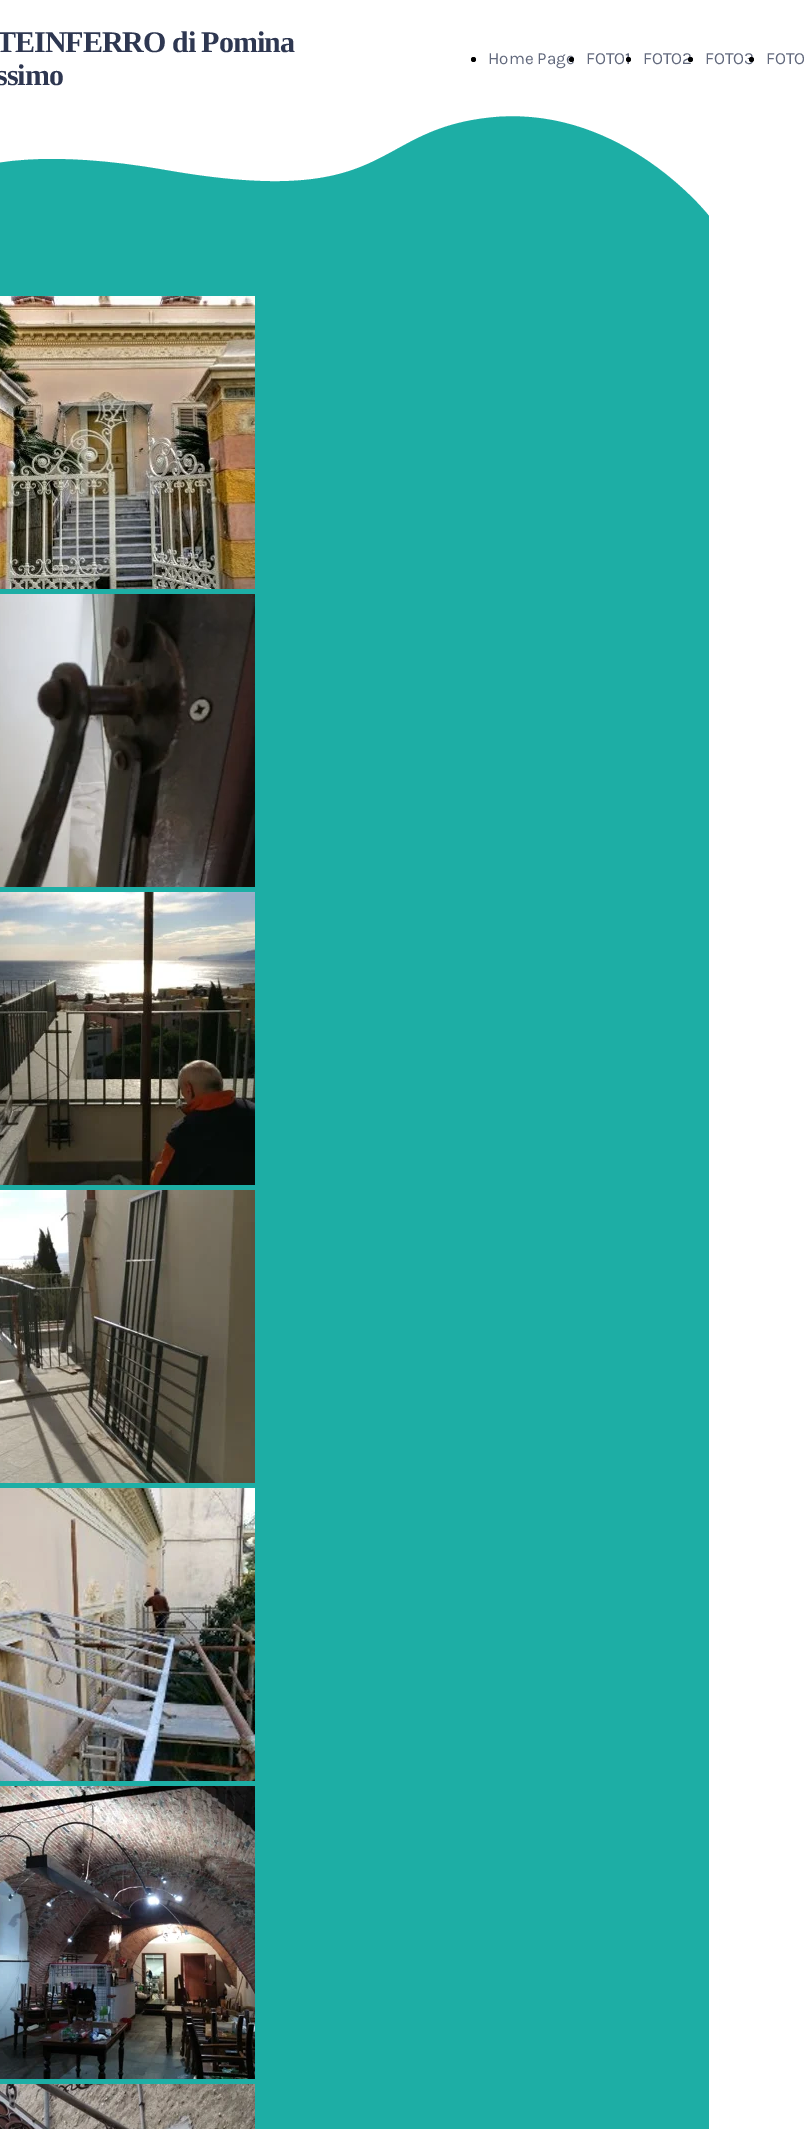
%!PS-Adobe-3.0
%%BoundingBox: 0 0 806 2129
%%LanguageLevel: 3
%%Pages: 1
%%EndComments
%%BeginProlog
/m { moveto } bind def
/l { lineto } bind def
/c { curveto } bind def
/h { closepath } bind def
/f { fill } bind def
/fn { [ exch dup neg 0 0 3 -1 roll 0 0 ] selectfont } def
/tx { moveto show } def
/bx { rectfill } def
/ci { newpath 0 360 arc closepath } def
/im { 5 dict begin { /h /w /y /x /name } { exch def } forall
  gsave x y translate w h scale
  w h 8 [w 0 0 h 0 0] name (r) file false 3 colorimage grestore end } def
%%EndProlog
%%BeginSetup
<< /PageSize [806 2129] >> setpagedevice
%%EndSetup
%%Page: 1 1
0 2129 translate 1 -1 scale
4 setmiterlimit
1 setgray
0 0 806 2129 bx
/LiberationSerif-Bold 30 fn
0.18 0.216 0.318 setrgbcolor
-4 52 m -1 0 (TEINFERRO di Pomina) ashow
-4 85 m -1 0 (ssimo) ashow
0 setgray
473.5 59.5 2.5 ci f
/Karla-Regular 17 fn
0.384 0.412 0.49 setrgbcolor
(Home Page) 488 64 tx
0 setgray
571.5 59.5 2.5 ci f
0.384 0.412 0.49 setrgbcolor
(FOTO1) 586 64 tx
0 setgray
628.5 59.5 2.5 ci f
0.384 0.412 0.49 setrgbcolor
(FOTO2) 643 64 tx
0 setgray
690.5 59.5 2.5 ci f
0.384 0.412 0.49 setrgbcolor
(FOTO3) 705 64 tx
0 setgray
751.5 59.5 2.5 ci f
0.384 0.412 0.49 setrgbcolor
(FOTO) 766 64 tx
0.114 0.682 0.647 setrgbcolor
-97 216 m 709 216 l 709 216 624 107 496 117 c 367 128 399 211 165 170 c -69 129 -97 216 -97 216 c h f
0 216 709 1913 bx
(image0.raw) 0 296 255 293 im
(image1.raw) 0 594 255 293 im
(image2.raw) 0 892 255 293 im
(image3.raw) 0 1190 255 293 im
(image4.raw) 0 1488 255 293 im
(image5.raw) 0 1786 255 293 im
(image6.raw) 0 2084 255 45 im
showpage
%%EOF
